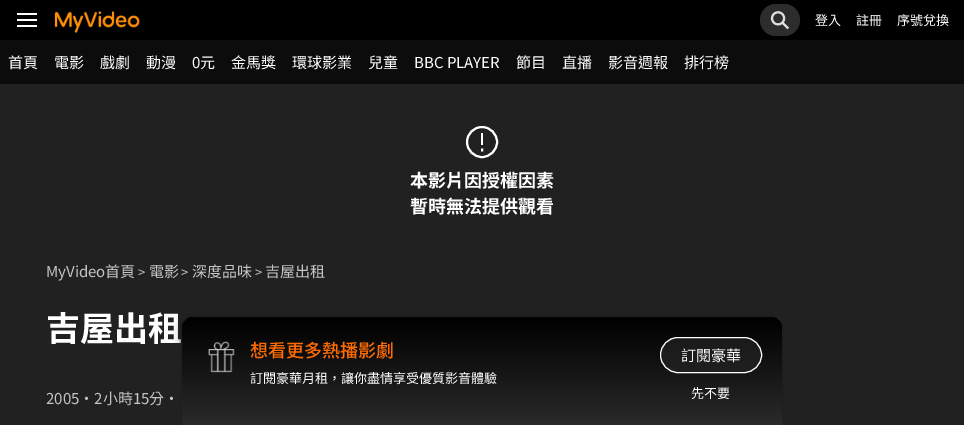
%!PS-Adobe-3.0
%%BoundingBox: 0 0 964 425
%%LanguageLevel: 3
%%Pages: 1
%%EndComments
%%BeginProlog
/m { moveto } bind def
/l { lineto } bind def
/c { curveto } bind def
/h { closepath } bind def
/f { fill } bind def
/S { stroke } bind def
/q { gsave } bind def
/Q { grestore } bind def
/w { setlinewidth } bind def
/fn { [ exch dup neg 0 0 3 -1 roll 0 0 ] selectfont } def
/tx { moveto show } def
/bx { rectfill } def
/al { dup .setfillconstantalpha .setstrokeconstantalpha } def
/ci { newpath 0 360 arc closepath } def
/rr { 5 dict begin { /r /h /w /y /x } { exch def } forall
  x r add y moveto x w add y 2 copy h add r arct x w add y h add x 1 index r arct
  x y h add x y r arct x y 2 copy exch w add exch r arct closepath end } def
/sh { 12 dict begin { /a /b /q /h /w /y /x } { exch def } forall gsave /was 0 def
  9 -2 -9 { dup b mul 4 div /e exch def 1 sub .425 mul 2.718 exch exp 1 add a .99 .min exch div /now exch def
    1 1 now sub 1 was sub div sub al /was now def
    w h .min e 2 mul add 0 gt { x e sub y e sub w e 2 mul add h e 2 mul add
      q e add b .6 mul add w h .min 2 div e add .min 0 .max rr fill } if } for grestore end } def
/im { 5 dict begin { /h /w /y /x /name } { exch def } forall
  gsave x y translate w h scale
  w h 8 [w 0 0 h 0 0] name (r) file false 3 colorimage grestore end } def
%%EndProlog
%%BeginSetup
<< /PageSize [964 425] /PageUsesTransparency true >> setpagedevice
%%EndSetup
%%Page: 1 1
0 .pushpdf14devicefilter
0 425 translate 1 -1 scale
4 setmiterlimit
0.129 setgray
0 0 964 425 bx
0 setgray
0 0 964 40 bx
(image0.raw) 17 13 20 14 im
(image1.raw) 54 11 86 22 im
0.176 setgray
760 4 40 32 16 rr f
(image2.raw) 770 11 19 19 im
/NotoSansTC-Regular 13 fn
1 setgray
(登入) 815 25 tx
(註冊) 856 25 tx
(序號兌換) 897 25 tx
0.047 setgray
0 40 964 44 bx
/NotoSansTC-Regular 15 fn
1 setgray
(首頁) 8 68 tx
(電影) 54 68 tx
(戲劇) 100 68 tx
(動漫) 146 68 tx
(0元) 192 68 tx
(金馬獎) 231 68 tx
(環球影業) 292 68 tx
(兒童) 368 68 tx
(BBC PLAYER) 414 68 tx
(節目) 516 68 tx
(直播) 562 68 tx
(影音週報) 608 68 tx
(排行榜) 684 68 tx
2 w
482 142 15 ci S
481 133 2 12 bx
482 151.5 m 482 148.5 l S
/NotoSansTC-Bold 18 fn
(本影片因授權因素) 410 187 tx
(暫時無法提供觀看) 410 213 tx
/NotoSansTC-Regular 15 fn
0.769 setgray
(MyVideo首頁) 46 277 tx
/NotoSansTC-Regular 13 fn
(>) 138 277 tx
/NotoSansTC-Regular 15 fn
(電影) 149 277 tx
/NotoSansTC-Regular 13 fn
(>) 181 277 tx
/NotoSansTC-Regular 15 fn
(深度品味) 192 277 tx
/NotoSansTC-Regular 13 fn
(>) 255 277 tx
/NotoSansTC-Regular 15 fn
(吉屋出租) 265 277 tx
/NotoSansTC-Bold 34 fn
1 setgray
(吉屋出租) 46 341 tx
/NotoSansTC-Regular 15 fn
0.769 setgray
(2005・2小時15分・) 46 404 tx
0.106 setgray
182 316 600 108 12 4 0.8 sh
q 194 317 m 770 317 l 776.5 317 782 322.5 782 329 c 782 425 l 182 425 l 182 329 l 182 322.5 187.5 317 194 317 c h clip newpath
<< /ShadingType 2 /ColorSpace /DeviceRGB /Coords [482 317 482 425] /Extend [true true] /Function << /FunctionType 2 /Domain [0 1] /C0 [0 0 0] /C1 [0.165 0.165 0.165] /N 1 >> >> shfill Q
(image3.raw) 208 341 27 32 im
/NotoSansTC-Medium 18 fn
1 0.42 0 setrgbcolor
(想看更多熱播影劇) 250 357 tx
/NotoSansTC-Regular 13 fn
1 setgray
(訂閱豪華月租，讓你盡情享受優質影音體驗) 250 383 tx
0.6 al
0.149 setgray
660.5 337.5 101 35 17.5 rr f
1 al
1 setgray
1 w
660.5 337.5 101 35 17.5 rr S
/NotoSansTC-Regular 15 fn
(訂閱豪華) 681 361 tx
/NotoSansTC-Regular 13 fn
(先不要) 691 398 tx
.poppdf14devicefilter showpage
%%EOF
